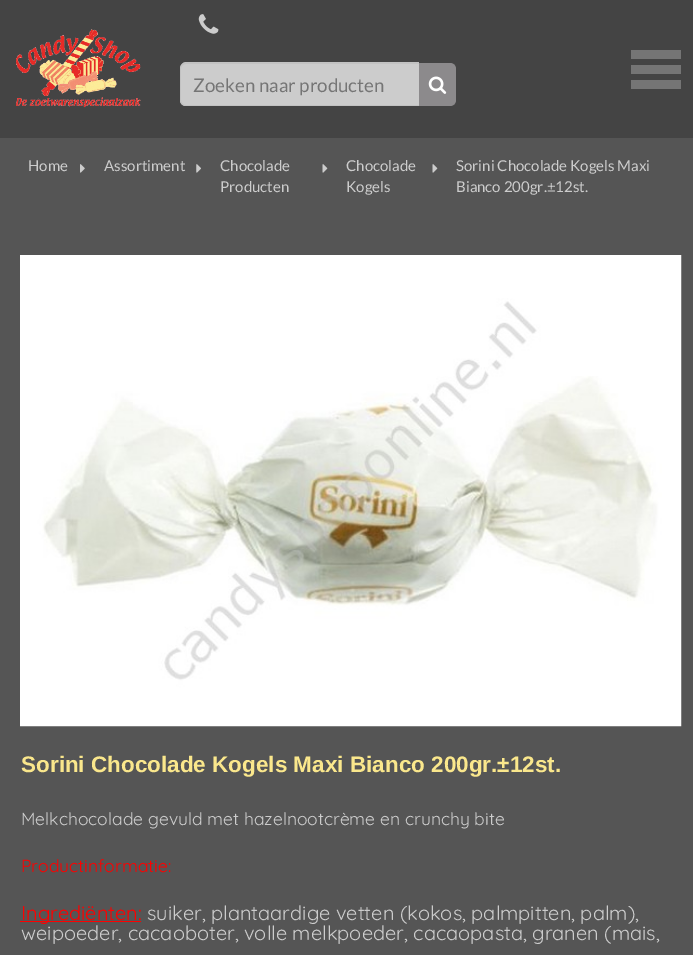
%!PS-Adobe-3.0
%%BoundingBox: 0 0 693 955
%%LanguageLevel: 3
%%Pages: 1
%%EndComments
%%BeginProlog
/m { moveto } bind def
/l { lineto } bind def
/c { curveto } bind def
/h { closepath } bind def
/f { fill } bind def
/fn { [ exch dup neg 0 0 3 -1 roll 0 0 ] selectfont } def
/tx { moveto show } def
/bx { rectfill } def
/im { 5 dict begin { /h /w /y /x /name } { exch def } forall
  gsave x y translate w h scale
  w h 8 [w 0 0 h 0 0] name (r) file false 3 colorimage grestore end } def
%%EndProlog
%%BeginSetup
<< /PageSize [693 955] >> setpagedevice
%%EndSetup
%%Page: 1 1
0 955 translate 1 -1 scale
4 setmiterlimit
0.267 setgray
0 0 693 955 bx
(image0.raw) 16 29 125 79 im
(image1.raw) 198 14 21 20 im
0.8 setgray
186 63 m 419 63 l 419 106 l 186 106 l 182.5 106 180 103.5 180 100 c 180 69 l 180 65.5 182.5 63 186 63 c h f
0.761 setgray
186 62 m 419 62 l 419 106 l 186 106 l 183 106 180 103 180 100 c 180 69 l 180 65 183 62 186 62 c h 186 64 m 419 64 l 419 105 l 186 105 l 183 105 181 103 181 100 c 181 69 l 181 66 183 64 186 64 c h eofill
/Lato-Regular 18.75 fn
0.459 setgray
(Zoeken naar producten) 193 92 tx
0.549 0.541 0.549 setrgbcolor
419 63 m 450 63 l 453.5 63 456 65.5 456 69 c 456 100 l 456 103.5 453.5 106 450 106 c 419 106 l h f
(image2.raw) 428 76 19 18 im
0.459 setgray
631 50 50 9 bx
631 65 50 9 bx
631 80 50 9 bx
0.333 setgray
0 138 693 817 bx
/Lato-Regular 15 fn
0.8 setgray
(Home) 28 171 tx
(image3.raw) 80 164 5 9 im
(Assortiment) 104 171 tx
(image4.raw) 196 164 5 9 im
(Chocolade) 220 171 tx
(image5.raw) 322 164 6 9 im
(Producten) 220 192 tx
(Chocolade) 346 171 tx
(image5.raw) 432 164 6 9 im
(Kogels) 346 192 tx
(Sorini Chocolade Kogels Maxi) 456 171 tx
(Bianco 200gr.±12st.) 456 192 tx
(image6.raw) 20 255 662 472 im
/LiberationSans-Bold 22.5 fn
0.98 0.906 0.549 setrgbcolor
(Sorini Chocolade Kogels Maxi Bianco 200gr.±12st.) 21 772 tx
/Quicksand-Regular 17.5 fn
0.8 setgray
(Melkchocolade gevuld met hazelnootcrème en crunchy bite) 21 825 tx
1 0 0 setrgbcolor
(Productinformatie:) 21 872 tx
20 921 121 1 bx
/Quicksand-Regular 20 fn
(Ingrediënten:) 21 920 tx
0.8 setgray
(suiker, plantaardige vetten \(kokos, palmpitten, palm\),) 147 920 tx
(weipoeder, cacaoboter, volle melkpoeder, cacaopasta, granen \(mais,) 21 940 tx
showpage
%%EOF
